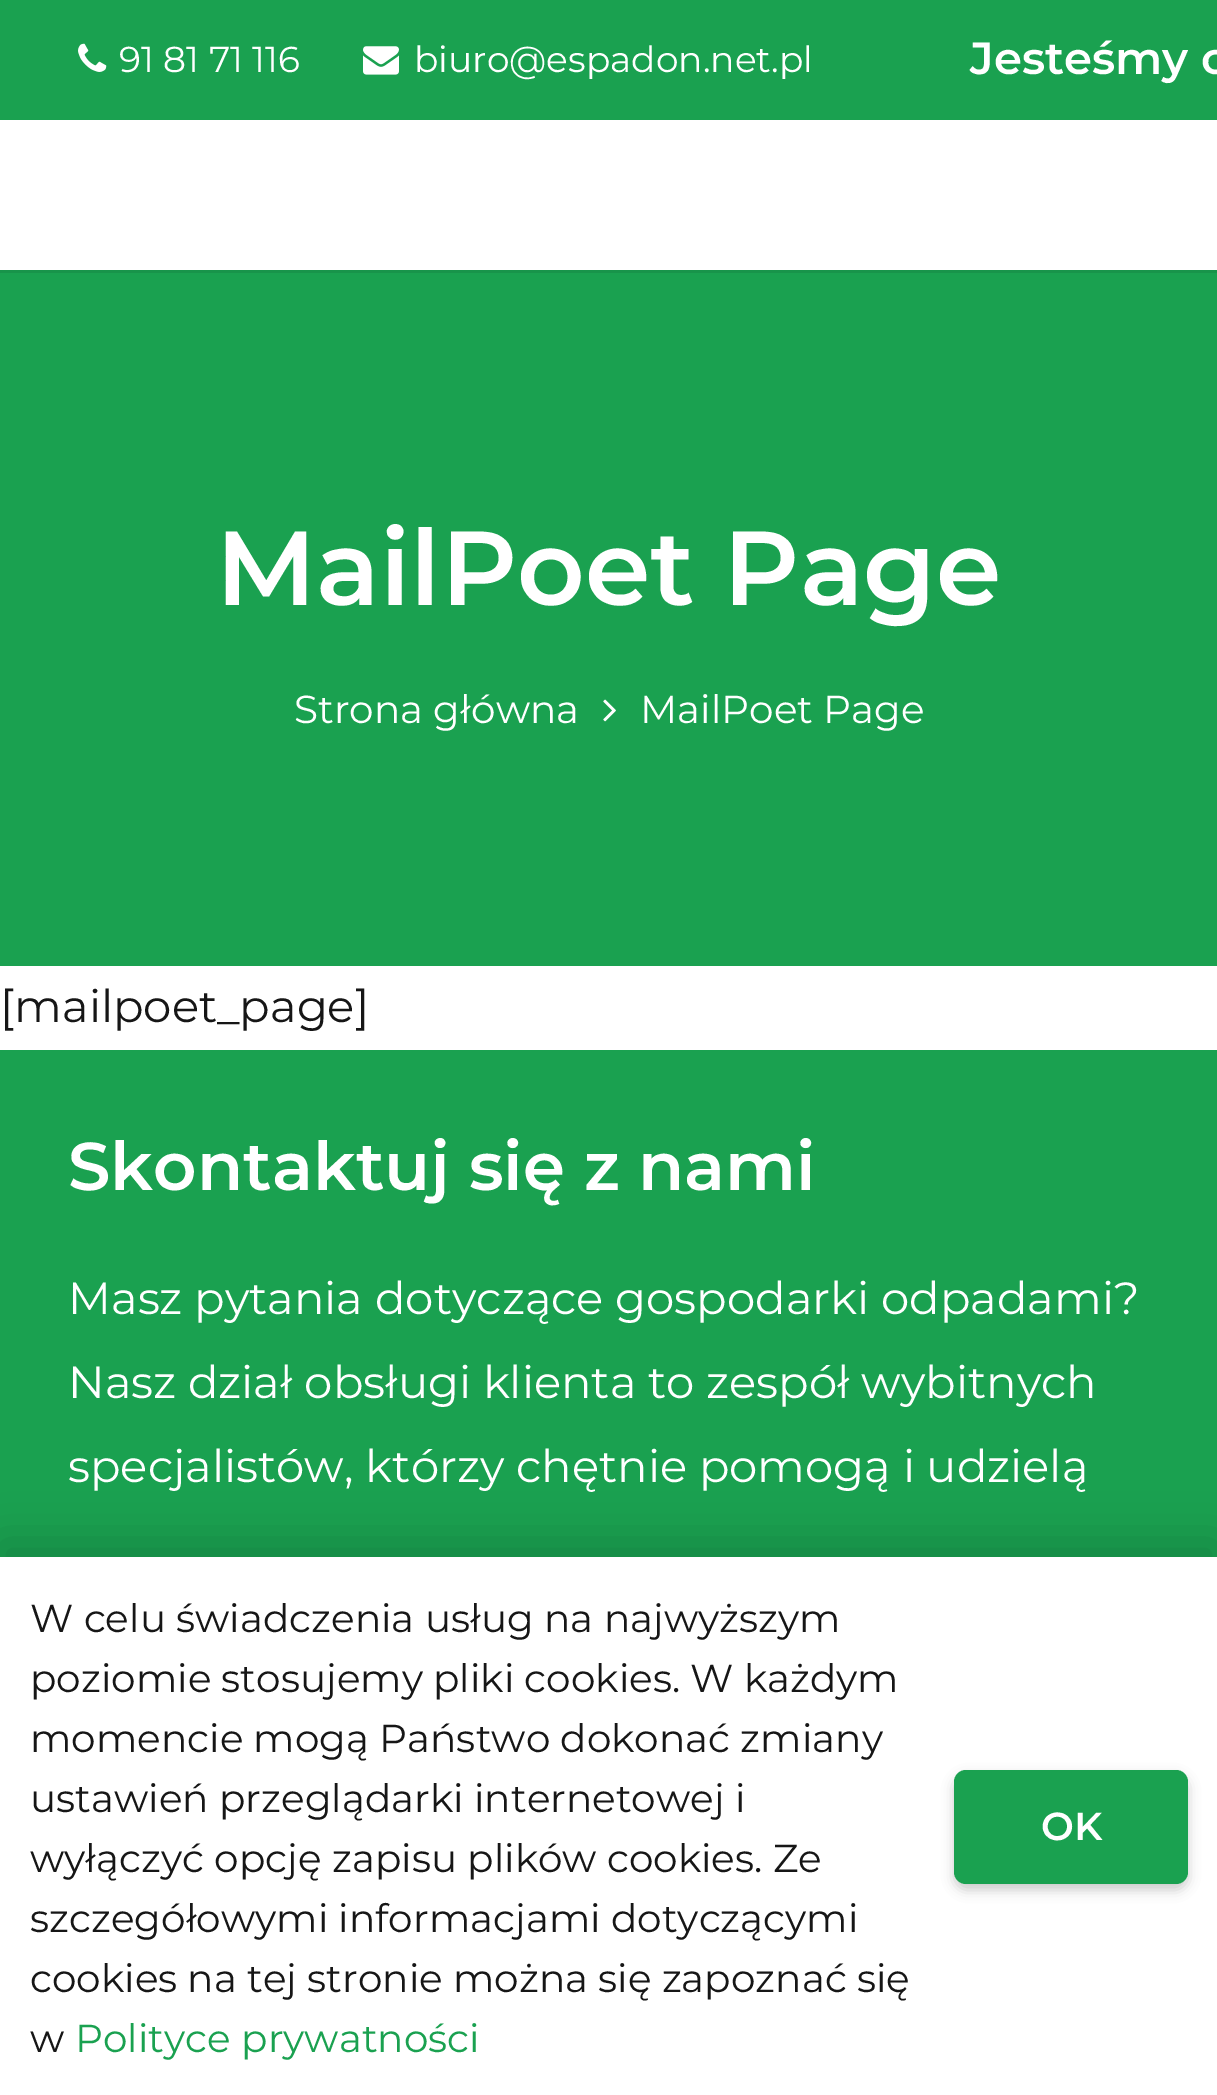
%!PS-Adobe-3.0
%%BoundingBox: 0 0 1217 2095
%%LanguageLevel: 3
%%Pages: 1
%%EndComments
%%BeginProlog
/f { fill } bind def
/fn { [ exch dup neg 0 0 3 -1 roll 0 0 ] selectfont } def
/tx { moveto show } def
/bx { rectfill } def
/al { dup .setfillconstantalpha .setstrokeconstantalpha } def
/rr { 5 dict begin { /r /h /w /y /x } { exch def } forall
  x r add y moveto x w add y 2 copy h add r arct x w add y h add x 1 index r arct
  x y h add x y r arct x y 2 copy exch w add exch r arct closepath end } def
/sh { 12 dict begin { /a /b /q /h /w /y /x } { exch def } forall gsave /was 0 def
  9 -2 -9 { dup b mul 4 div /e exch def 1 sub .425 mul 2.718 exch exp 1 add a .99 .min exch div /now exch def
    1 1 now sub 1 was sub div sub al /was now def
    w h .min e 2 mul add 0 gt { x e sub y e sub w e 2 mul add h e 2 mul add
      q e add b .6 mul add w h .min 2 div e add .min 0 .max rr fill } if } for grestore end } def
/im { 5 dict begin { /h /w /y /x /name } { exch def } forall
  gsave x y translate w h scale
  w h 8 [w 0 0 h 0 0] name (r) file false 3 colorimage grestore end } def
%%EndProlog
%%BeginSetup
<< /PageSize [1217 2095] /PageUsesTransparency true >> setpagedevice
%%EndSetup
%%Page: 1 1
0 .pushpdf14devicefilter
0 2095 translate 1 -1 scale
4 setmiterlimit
1 setgray
0 0 1217 2095 bx
0.102 0.631 0.314 setrgbcolor
0 0 1217 966 bx
(image0.raw) 78 43 29 29 im
/Montserrat-Regular 36 fn
1 setgray
(91 81 71 116) 119 72 tx
(image1.raw) 363 46 36 29 im
(biuro@espadon.net.pl) 414 72 tx
/Montserrat-SemiBold 45 fn
(Jesteśmy c) 970 74 tx
0.094 0.58 0.29 setrgbcolor
0 270 1217 3 bx
1 setgray
0 120 1217 150 bx
/Montserrat-SemiBold 105 fn
(MailPoet Page) 216 605 tx
/Montserrat-Regular 39 fn
(Strona główna) 294 723 tx
(image2.raw) 603 699 13 23 im
(MailPoet Page) 640 723 tx
/Montserrat-Regular 45 fn
0.086 setgray
([mailpoet_page]) 0 1022 tx
0.102 0.631 0.314 setrgbcolor
0 1050 1217 507 bx
/Montserrat-SemiBold 67.5 fn
1 setgray
(Skontaktuj się z nami) 68 1190 tx
/Montserrat-Regular 45 fn
(Masz pytania dotyczące gospodarki odpadami?) 68 1314 tx
(Nasz dział obsługi klienta to zespół wybitnych) 68 1398 tx
(specjalistów, którzy chętnie pomogą i udzielą) 68 1482 tx
0 setgray
0 1542 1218 540 0 22.5 0.15 sh
1 setgray
0 1557 1217 538 bx
/Montserrat-Regular 39 fn
0.086 setgray
(W celu świadczenia usług na najwyższym) 30 1632 tx
(poziomie stosujemy pliki cookies. W każdym) 30 1692 tx
(momencie mogą Państwo dokonać zmiany) 30 1752 tx
(ustawień przeglądarki internetowej i) 30 1812 tx
(wyłączyć opcję zapisu plików cookies. Ze) 30 1872 tx
(szczegółowymi informacjami dotyczącymi) 30 1932 tx
(cookies na tej stronie można się zapoznać się) 30 1992 tx
(w) 30 2052 tx
0.102 0.631 0.314 setrgbcolor
(Polityce prywatności) 75 2052 tx
0 setgray
954 1776 234 114 12 6 0.2 sh
0.102 0.631 0.314 setrgbcolor
954 1770 234 114 12 rr f
/Montserrat-SemiBold 39 fn
1 setgray
(OK) 1041 1840 tx
.poppdf14devicefilter showpage
%%EOF
